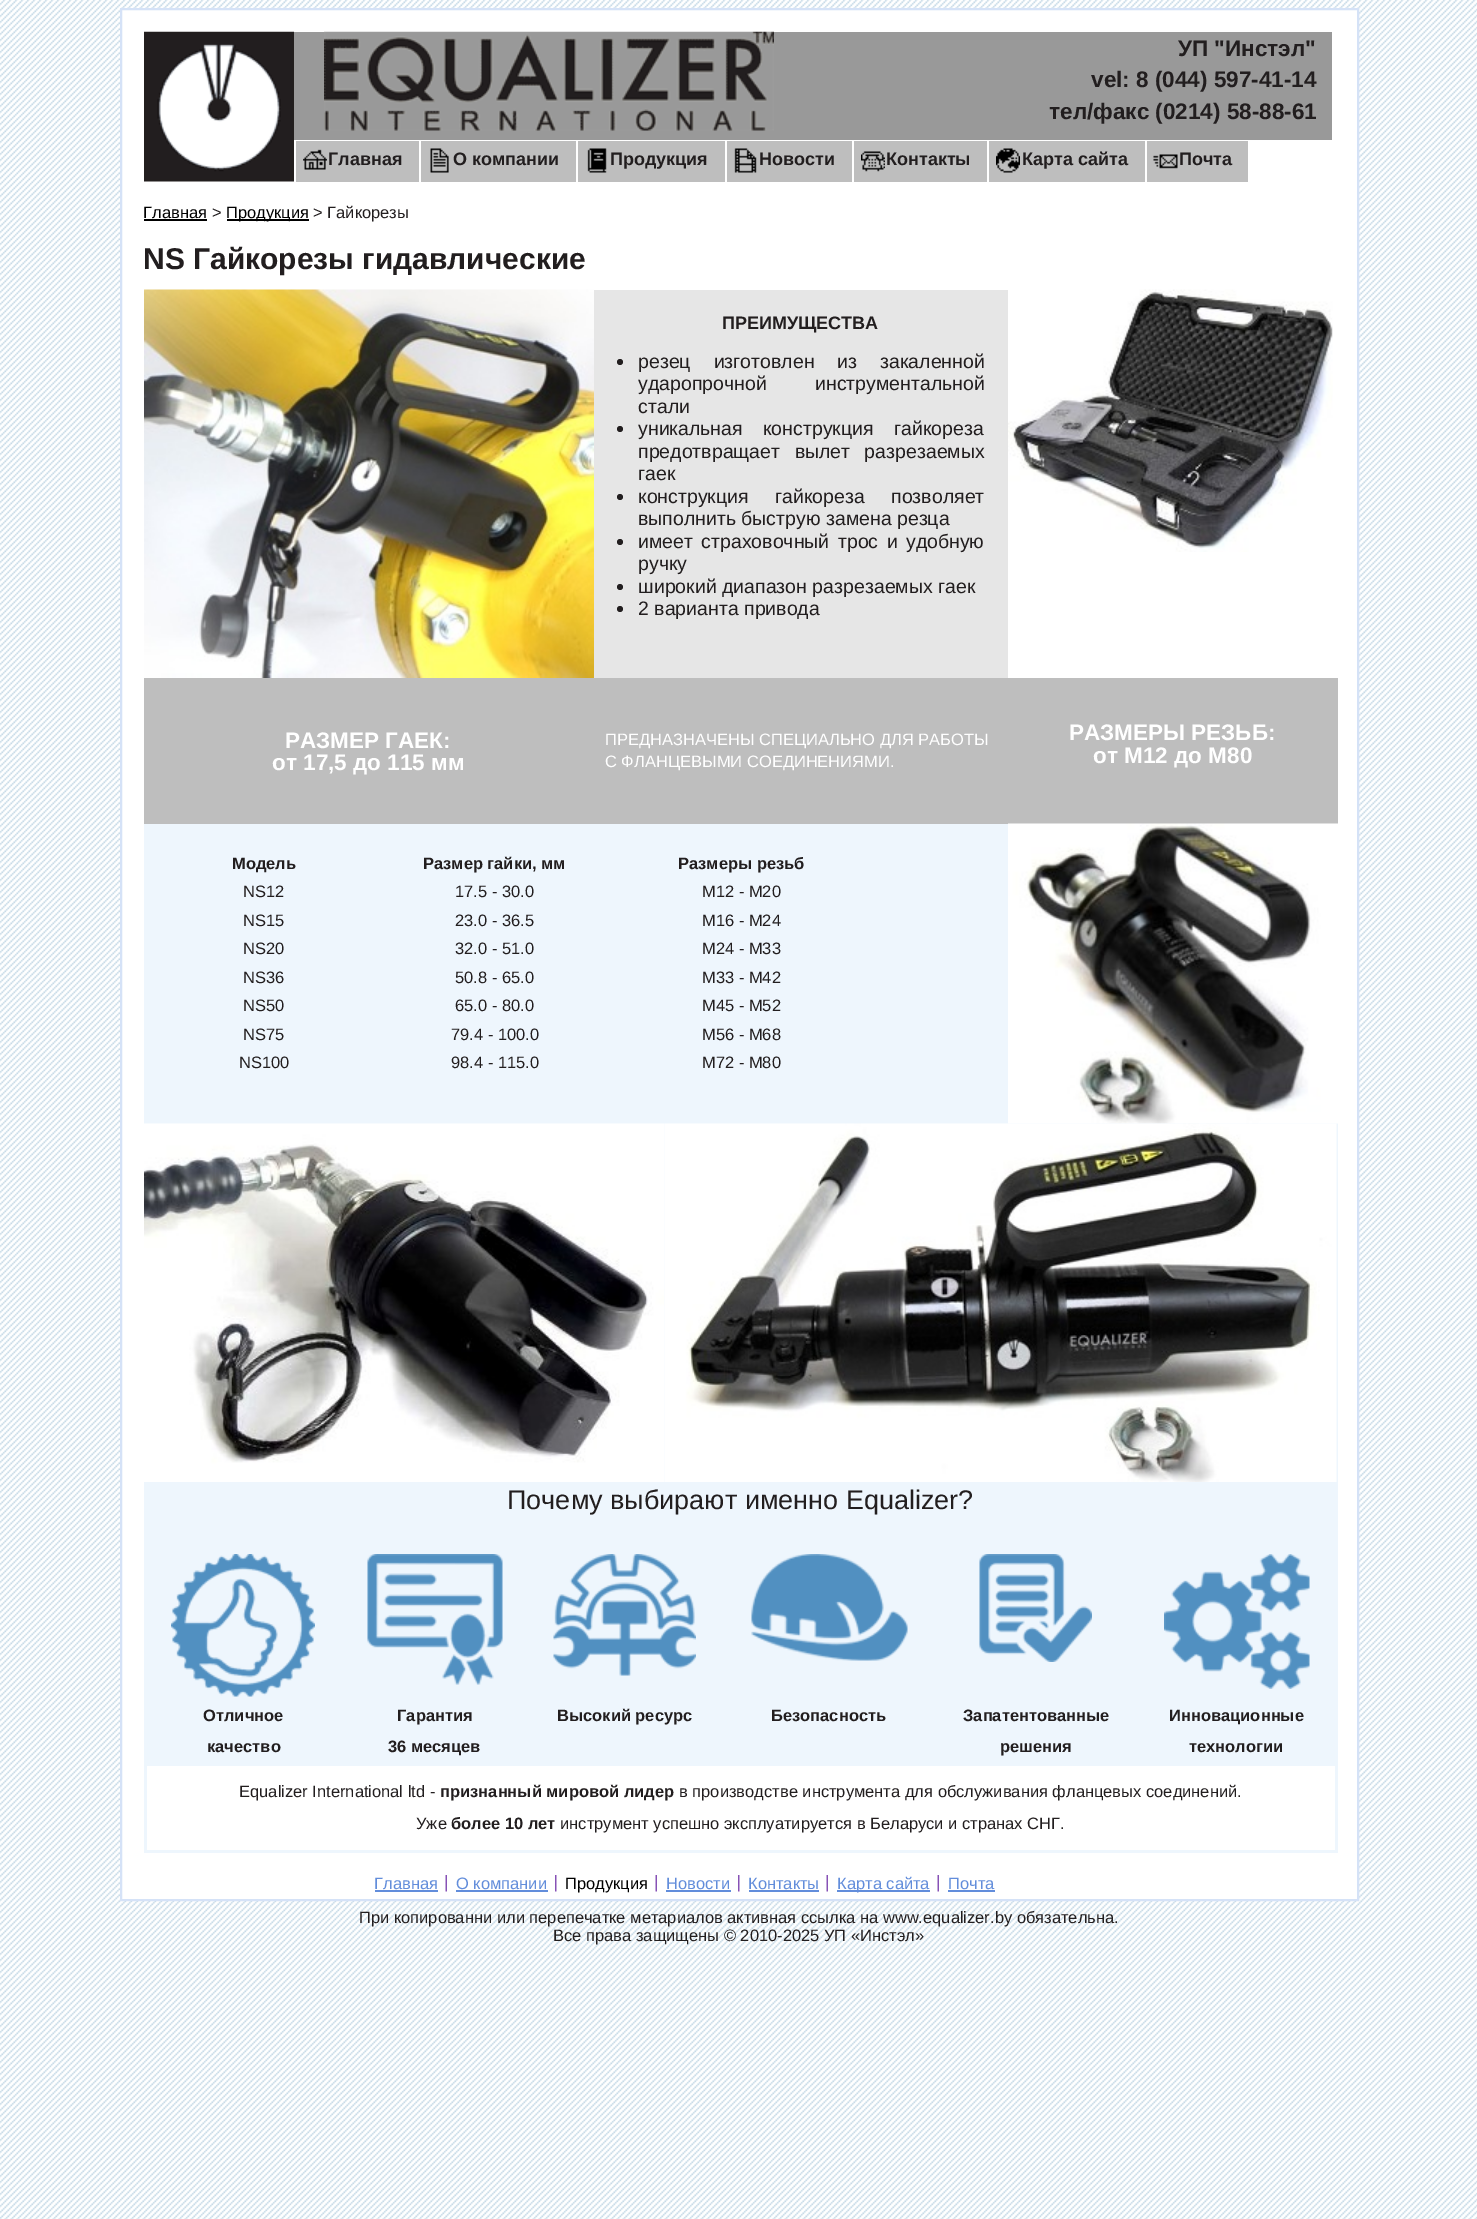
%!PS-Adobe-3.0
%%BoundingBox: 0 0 1477 2219
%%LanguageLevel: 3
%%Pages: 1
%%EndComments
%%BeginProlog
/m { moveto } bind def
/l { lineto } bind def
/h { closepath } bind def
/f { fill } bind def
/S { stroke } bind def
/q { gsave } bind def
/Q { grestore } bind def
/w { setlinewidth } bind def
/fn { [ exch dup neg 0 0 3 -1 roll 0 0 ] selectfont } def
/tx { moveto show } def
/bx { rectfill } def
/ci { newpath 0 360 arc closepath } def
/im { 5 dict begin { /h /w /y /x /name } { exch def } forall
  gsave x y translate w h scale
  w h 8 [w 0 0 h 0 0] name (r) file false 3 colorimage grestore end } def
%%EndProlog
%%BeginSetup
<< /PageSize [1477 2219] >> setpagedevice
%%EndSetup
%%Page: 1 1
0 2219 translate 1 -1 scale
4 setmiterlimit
1 setgray
0 0 1477 2219 bx
(image0.raw) 0 0 1477 2219 im
121 9 m 1358 9 l 1358 1900 l 121 1900 l h q f Q
0.835 0.886 0.969 setrgbcolor
2 w
S
(image1.raw) 144 31 150 151 im
0.6 setgray
294 32 1038 108 bx
(image2.raw) 324 31 450 100 im
/LiberationSans-Bold 22.5 fn
0.133 0.118 0.122 setrgbcolor
(УП "Инстэл") 1178 56 tx
(vel: 8 \(044\) 597-41-14) 1091 87 tx
(тел/факс \(0214\) 58-88-61) 1049 119 tx
0.745 setgray
296 141 123 41 bx
(image3.raw) 303 149 24 21 im
/LiberationSans-Bold 18 fn
0.133 0.118 0.122 setrgbcolor
(Главная) 328 165 tx
0.745 setgray
421 141 155 41 bx
(image4.raw) 430 148 19 25 im
0.133 0.118 0.122 setrgbcolor
(О компании) 453 165 tx
0.745 setgray
578 141 147 41 bx
(image5.raw) 587 148 20 25 im
0.133 0.118 0.122 setrgbcolor
(Продукция) 610 165 tx
0.745 setgray
727 141 125 41 bx
(image6.raw) 734 148 23 25 im
0.133 0.118 0.122 setrgbcolor
(Новости) 759 165 tx
0.745 setgray
854 141 133 41 bx
(image7.raw) 861 151 24 21 im
0.133 0.118 0.122 setrgbcolor
(Контакты) 886 165 tx
0.745 setgray
989 141 156 41 bx
(image8.raw) 996 148 24 25 im
0.133 0.118 0.122 setrgbcolor
(Карта сайта) 1022 165 tx
0.745 setgray
1147 141 101 41 bx
(image9.raw) 1153 154 25 15 im
0.133 0.118 0.122 setrgbcolor
(Почта) 1179 165 tx
/LiberationSans-Regular 16.5 fn
0 setgray
(Главная) 143 218 tx
144 219 63 2 bx
0.133 0.118 0.122 setrgbcolor
(>) 212 218 tx
0 setgray
227 219 82 2 bx
(Продукция) 226 218 tx
0.133 0.118 0.122 setrgbcolor
(> Гайкорезы) 313 218 tx
/LiberationSans-Bold 30 fn
(NS Гайкорезы гидавлические) 143 269 tx
(image10.raw) 144 289 450 389 im
0.902 setgray
594 290 414 388 bx
/LiberationSans-Bold 18 fn
0.133 0.118 0.122 setrgbcolor
(ПРЕИМУЩЕСТВА) 722 329 tx
620 362 3 ci f
/LiberationSans-Regular 19.5 fn
638 368 m 17.5 0 32 (резец изготовлен из закаленной) widthshow
638 390 m 43 0 32 (ударопрочной инструментальной) widthshow
(стали) 638 413 tx
620 429 3 ci f
638 435 m 15 0 32 (уникальная конструкция гайкореза) widthshow
638 458 m 9 0 32 (предотвращает вылет разрезаемых) widthshow
(гаек) 638 480 tx
620 497 3 ci f
638 503 m 21 0 32 (конструкция гайкореза позволяет) widthshow
(выполнить быструю замена резца) 638 525 tx
620 542 3 ci f
638 548 m 3 0 32 (имеет страховочный трос и удобную) widthshow
(ручку) 638 570 tx
620 587 3 ci f
(широкий диапазон разрезаемых гаек) 638 593 tx
620 609 3 ci f
(2 варианта привода) 638 615 tx
(image11.raw) 1008 289 325 263 im
0.745 setgray
144 678 1194 146 bx
/LiberationSans-Bold 22.5 fn
1 setgray
(РАЗМЕР ГАЕК:) 285 748 tx
(от 17,5 до 115 мм) 272 770 tx
/LiberationSans-Regular 16.5 fn
(ПРЕДНАЗНАЧЕНЫ СПЕЦИАЛЬНО ДЛЯ РАБОТЫ) 605 745 tx
(С ФЛАНЦЕВЫМИ СОЕДИНЕНИЯМИ.) 605 767 tx
/LiberationSans-Bold 22.5 fn
(РАЗМЕРЫ РЕЗЬБ:) 1069 740 tx
(от М12 до М80) 1093 763 tx
0.933 0.965 0.992 setrgbcolor
144 824 864 300 bx
/LiberationSans-Bold 16.5 fn
0.133 0.118 0.122 setrgbcolor
(Модель) 232 869 tx
(Размер гайки, мм) 423 869 tx
(Размеры резьб) 678 869 tx
/LiberationSans-Regular 16.5 fn
(NS12) 243 897 tx
(17.5 - 30.0) 455 897 tx
(M12 - M20) 702 897 tx
(NS15) 243 926 tx
(23.0 - 36.5) 455 926 tx
(M16 - M24) 702 926 tx
(NS20) 243 954 tx
(32.0 - 51.0) 455 954 tx
(M24 - M33) 702 954 tx
(NS36) 243 983 tx
(50.8 - 65.0) 455 983 tx
(M33 - M42) 702 983 tx
(NS50) 243 1011 tx
(65.0 - 80.0) 455 1011 tx
(M45 - M52) 702 1011 tx
(NS75) 243 1040 tx
(79.4 - 100.0) 451 1040 tx
(M56 - M68) 702 1040 tx
(NS100) 239 1068 tx
(98.4 - 115.0) 451 1068 tx
(M72 - M80) 702 1068 tx
0.933 0.965 0.992 setrgbcolor
1008 1123 330 1 bx
(image12.raw) 1008 823 330 301 im
664 1124 674 358 bx
(image13.raw) 144 1123 521 359 im
(image14.raw) 664 1123 673 359 im
144 1482 1194 371 bx
/LiberationSans-Regular 27 fn
0.133 0.118 0.122 setrgbcolor
(Почему выбирают именно Equalizer?) 507 1509 tx
(image15.raw) 171 1554 144 143 im
(image16.raw) 367 1554 136 131 im
(image17.raw) 553 1554 143 122 im
(image18.raw) 751 1554 157 107 im
(image19.raw) 979 1554 113 108 im
(image20.raw) 1164 1554 146 135 im
/LiberationSans-Bold 16.5 fn
(Отличное) 203 1721 tx
(качество) 207 1752 tx
(Гарантия) 397 1721 tx
(36 месяцев) 388 1752 tx
(Высокий ресурс) 557 1721 tx
(Безопасность) 771 1721 tx
(Запатентованные) 963 1721 tx
(решения) 1000 1752 tx
(Инновационные) 1169 1721 tx
(технологии) 1189 1752 tx
1 setgray
147 1766 1188 84 bx
/LiberationSans-Regular 16.5 fn
0.133 0.118 0.122 setrgbcolor
(Equalizer International ltd -) 239 1797 tx
/LiberationSans-Bold 16.5 fn
(признанный мировой лидер) 440 1797 tx
/LiberationSans-Regular 16.5 fn
(в производстве инструмента для обслуживания фланцевых соединений.) 679 1797 tx
(Уже) 416 1829 tx
/LiberationSans-Bold 16.5 fn
(более 10 лет) 451 1829 tx
/LiberationSans-Regular 16.5 fn
(инструмент успешно эксплуатируется в Беларуси и странах СНГ.) 560 1829 tx
(image21.raw) 445 1875 2 17 im
0.384 0.553 0.859 setrgbcolor
(Главная) 374 1889 tx
375 1890 63 2 bx
(image22.raw) 555 1875 2 17 im
(О компании) 456 1889 tx
456 1890 92 2 bx
(image21.raw) 655 1875 2 17 im
0 setgray
(Продукция) 565 1889 tx
(image22.raw) 738 1875 2 17 im
0.384 0.553 0.859 setrgbcolor
(Новости) 666 1889 tx
666 1890 65 2 bx
(image21.raw) 826 1875 2 17 im
(Контакты) 748 1889 tx
749 1890 70 2 bx
(image21.raw) 937 1875 2 17 im
837 1890 93 2 bx
(Карта сайта) 837 1889 tx
(Почта) 948 1889 tx
948 1890 47 2 bx
0.133 0.118 0.122 setrgbcolor
(При копированни или перепечатке метариалов активная ссылка на www.equalizer.by обязательна.) 359 1923 tx
(Все права защищены © 2010-2025 УП «Инстэл») 553 1941 tx
showpage
%%EOF
